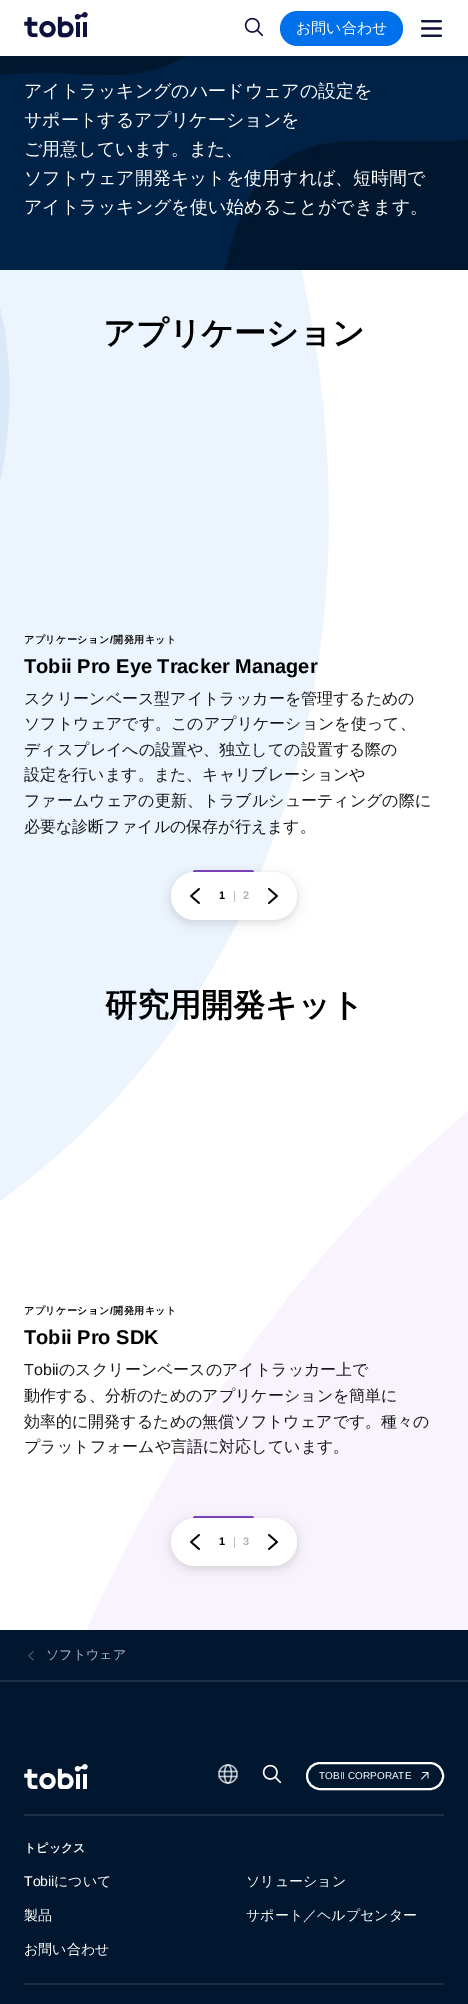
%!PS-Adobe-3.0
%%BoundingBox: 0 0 468 2004
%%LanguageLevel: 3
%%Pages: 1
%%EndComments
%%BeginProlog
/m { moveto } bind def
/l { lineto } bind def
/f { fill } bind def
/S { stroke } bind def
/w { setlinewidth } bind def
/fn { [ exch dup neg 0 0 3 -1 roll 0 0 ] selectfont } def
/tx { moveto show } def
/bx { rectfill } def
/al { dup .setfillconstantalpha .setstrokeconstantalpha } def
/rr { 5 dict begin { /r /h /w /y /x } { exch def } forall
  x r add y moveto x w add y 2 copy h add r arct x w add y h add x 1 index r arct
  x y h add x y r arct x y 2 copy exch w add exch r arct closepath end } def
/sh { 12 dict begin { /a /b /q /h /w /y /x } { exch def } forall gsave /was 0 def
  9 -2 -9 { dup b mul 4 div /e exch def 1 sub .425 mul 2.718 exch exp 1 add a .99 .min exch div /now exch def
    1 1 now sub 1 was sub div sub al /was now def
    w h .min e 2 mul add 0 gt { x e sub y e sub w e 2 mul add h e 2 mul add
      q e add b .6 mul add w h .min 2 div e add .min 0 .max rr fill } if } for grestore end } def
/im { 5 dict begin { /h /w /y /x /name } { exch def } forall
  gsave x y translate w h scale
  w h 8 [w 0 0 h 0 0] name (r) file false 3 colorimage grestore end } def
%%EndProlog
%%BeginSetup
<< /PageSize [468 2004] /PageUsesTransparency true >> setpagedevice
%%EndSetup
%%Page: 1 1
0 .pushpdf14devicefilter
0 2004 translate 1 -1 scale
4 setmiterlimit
1 setgray
0 0 468 2004 bx
(image3.raw) 0 56 468 214 im
0.102 setgray
0 4 468 56 0 8 0.05 sh
0 setgray
0 2 468 56 0 4 0.1 sh
1 setgray
0 0 468 56 bx
(image0.raw) 24 12 64 26 im
(image1.raw) 244 17 20 20 im
0 0.443 0.922 setrgbcolor
280 11 123 35 17.5 rr f
/WenQuanYiZenHei-Medium 15 fn
1 setgray
(お問い合わせ) 296 33 tx
(image2.raw) 421 20 21 17 im
/WenQuanYiZenHei-Medium 18 fn
(アイトラッキングのハードウェアの設定を) 24 97 tx
(サポートするアプリケーションを) 24 126 tx
(ご用意しています。また、) 24 155 tx
(ソフトウェア開発キットを使用すれば、短時間で) 24 184 tx
(アイトラッキングを使い始めることができます。) 24 213 tx
(image6.raw) 0 270 468 1360 im
/WenQuanYiZenHei-Bold 32 fn
0 setgray
(アプリケーション) 103 344 tx
/WenQuanYiZenHei-Bold 10 fn
24 643 m 0.5 0 (アプリケーション 開発用キット) ashow
/LiberationSans-Bold 10 fn
110 643 m 0.5 0 (/) ashow
/LiberationSans-Bold 20 fn
(Tobii Pro Eye Tracker Manager) 24 673 tx
/WenQuanYiZenHei-Medium 16 fn
0.094 0.098 0.098 setrgbcolor
(スクリーンベース型アイトラッカーを管理するための) 24 704 tx
(ソフトウェアです。このアプリケーションを使って、) 24 729 tx
(ディスプレイへの設置や、独立しての設置する際の) 24 755 tx
(設定を行います。また、キャリブレーションや) 24 780 tx
(ファームウェアの更新、トラブルシューティングの際に) 24 806 tx
(必要な診断ファイルの保存が行えます。) 24 832 tx
0.498 0.267 0.749 setrgbcolor
4 w
1 setlinecap
195 872 m 252 872 l S
0.102 setgray
171 876 126 48 24 8 0.05 sh
0 setgray
171 874 126 48 24 4 0.1 sh
1 setgray
171 872 126 48 24 rr f
(image4.raw) 190 888 10 16 im
/LiberationSans-Bold 11 fn
0 setgray
219 899 m 1 0 (1) ashow
0.749 setgray
234 891 1 11 bx
0.686 0.694 0.733 setrgbcolor
243 899 m 1 0 (2) ashow
(image5.raw) 268 888 10 16 im
/WenQuanYiZenHei-Bold 32 fn
0 setgray
(研究用開発キット) 105 1016 tx
/WenQuanYiZenHei-Bold 10 fn
24 1314 m 0.5 0 (アプリケーション 開発用キット) ashow
/LiberationSans-Bold 10 fn
110 1314 m 0.5 0 (/) ashow
/LiberationSans-Bold 20 fn
(Tobii Pro SDK) 24 1344 tx
/LiberationSans-Regular 16 fn
0.094 0.098 0.098 setrgbcolor
(Tobii) 24 1375 tx
/WenQuanYiZenHei-Medium 16 fn
(のスクリーンベースのアイトラッカー上で) 59 1375 tx
(動作する、分析のためのアプリケーションを簡単に) 24 1401 tx
(効率的に開発するための無償ソフトウェアです。種々の) 24 1427 tx
(プラットフォームや言語に対応しています。) 24 1452 tx
0.498 0.267 0.749 setrgbcolor
195 1518 m 252 1518 l S
0.102 setgray
171 1522 126 48 24 8 0.05 sh
0 setgray
171 1520 126 48 24 4 0.1 sh
1 setgray
171 1518 126 48 24 rr f
(image4.raw) 190 1534 10 16 im
/LiberationSans-Bold 11 fn
0 setgray
219 1545 m 1 0 (1) ashow
0.749 setgray
234 1537 1 11 bx
0.686 0.694 0.733 setrgbcolor
243 1545 m 1 0 (3) ashow
(image5.raw) 268 1534 10 16 im
0 0.09 0.184 setrgbcolor
0 1630 468 50 bx
0.102 0.18 0.267 setrgbcolor
0 1680 468 2 bx
(image7.raw) 28 1651 6 10 im
/WenQuanYiZenHei-Medium 13 fn
0.702 0.725 0.757 setrgbcolor
(ソフトウェア) 46 1659 tx
0 0.09 0.184 setrgbcolor
0 1682 468 322 bx
(image8.raw) 24 1764 64 25 im
(image9.raw) 218 1764 20 20 im
(image10.raw) 262 1764 20 20 im
1 setgray
2 w
0 setlinecap
307 1763 136 26 13 rr S
/LiberationSans-Regular 10 fn
(TOBII CORPORATE) 319 1779 tx
(image11.raw) 421 1772 8 8 im
0.102 0.18 0.267 setrgbcolor
24 1814 420 2 bx
/WenQuanYiZenHei-Bold 12 fn
1 setgray
(トピックス) 24 1852 tx
/LiberationSans-Regular 14 fn
(Tobii) 24 1886 tx
/WenQuanYiZenHei-Medium 14 fn
(について) 54 1886 tx
(ソリューション) 246 1886 tx
(製品) 24 1920 tx
(サポート／ヘルプセンター) 246 1920 tx
(お問い合わせ) 24 1954 tx
0.102 0.18 0.267 setrgbcolor
24 1983 420 2 bx
.poppdf14devicefilter showpage
%%EOF
